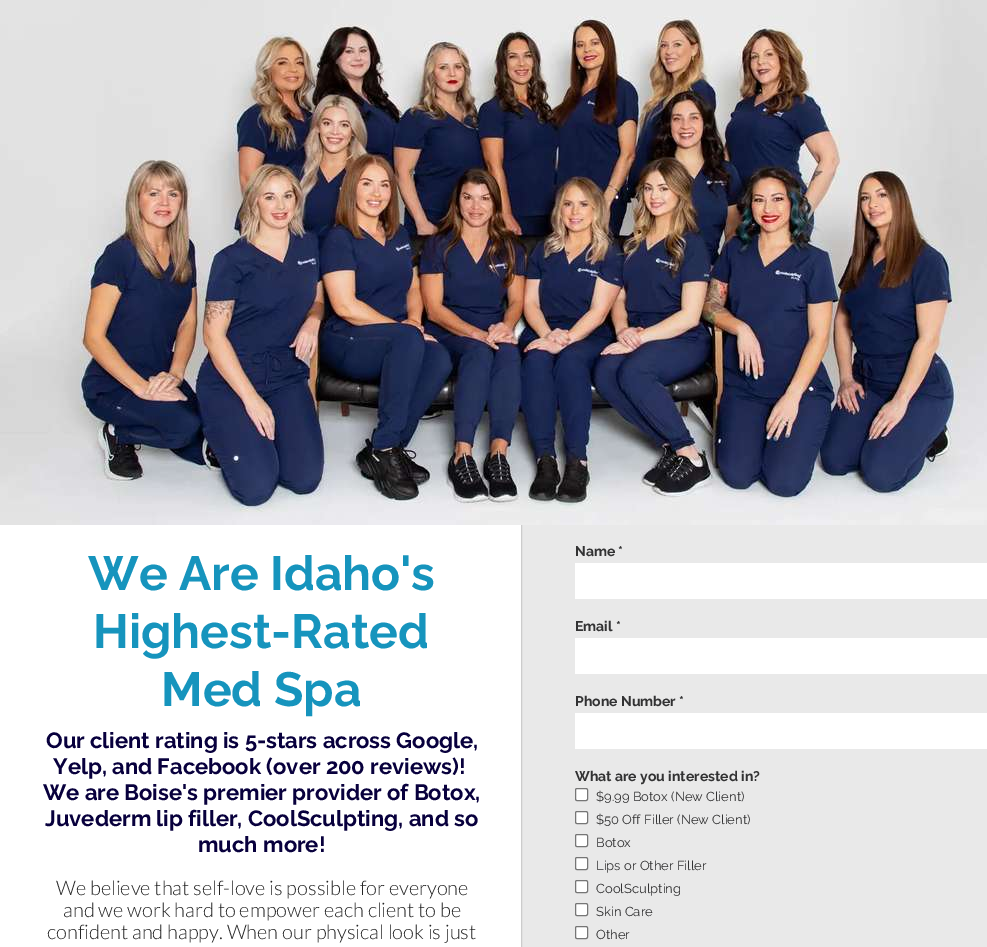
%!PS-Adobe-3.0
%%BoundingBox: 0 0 987 947
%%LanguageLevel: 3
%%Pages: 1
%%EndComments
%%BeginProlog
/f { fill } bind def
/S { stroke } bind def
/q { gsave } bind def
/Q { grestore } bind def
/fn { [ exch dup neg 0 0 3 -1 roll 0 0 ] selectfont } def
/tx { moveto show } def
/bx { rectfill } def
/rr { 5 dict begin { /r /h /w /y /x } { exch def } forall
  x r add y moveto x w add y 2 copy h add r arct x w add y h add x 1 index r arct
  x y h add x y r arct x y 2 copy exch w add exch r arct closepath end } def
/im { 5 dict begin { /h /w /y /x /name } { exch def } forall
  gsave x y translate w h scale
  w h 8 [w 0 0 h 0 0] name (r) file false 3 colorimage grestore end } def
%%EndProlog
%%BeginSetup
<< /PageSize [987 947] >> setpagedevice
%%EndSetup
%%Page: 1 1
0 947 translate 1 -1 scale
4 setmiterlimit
1 setgray
0 0 987 947 bx
0.914 setgray
522 525 465 422 bx
0.8 setgray
521.5 523.5 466 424 rectstroke
(image0.raw) 0 0 987 525 im
/Raleway-Bold 48 fn
0.086 0.58 0.741 setrgbcolor
(We Are Idaho's) 88 590 tx
(Highest-Rated) 93 648 tx
(Med Spa) 161 706 tx
/Raleway-Bold 14 fn
0.196 0.196 0.2 setrgbcolor
(Name *) 575 556 tx
1 setgray
575 563 412 36 bx
0.196 0.196 0.2 setrgbcolor
(Email *) 575 631 tx
1 setgray
575 638 412 36 bx
0.196 0.196 0.2 setrgbcolor
(Phone Number *) 575 706 tx
1 setgray
575 713 412 36 bx
0.196 0.196 0.2 setrgbcolor
(What are you interested in?) 575 781 tx
1 setgray
575.5 788.5 12 12 1.5 rr q f Q
0.463 setgray
S
/Raleway-Regular 13 fn
0.196 0.196 0.2 setrgbcolor
($9.99 Botox \(New Client\)) 596 801 tx
1 setgray
575.5 811.5 12 12 1.5 rr q f Q
0.463 setgray
S
0.196 0.196 0.2 setrgbcolor
($50 Off Filler \(New Client\)) 596 824 tx
1 setgray
575.5 834.5 12 12 1.5 rr q f Q
0.463 setgray
S
0.196 0.196 0.2 setrgbcolor
(Botox) 596 847 tx
1 setgray
575.5 857.5 12 12 1.5 rr q f Q
0.463 setgray
S
0.196 0.196 0.2 setrgbcolor
(Lips or Other Filler) 596 870 tx
1 setgray
575.5 880.5 12 12 1.5 rr q f Q
0.463 setgray
S
0.196 0.196 0.2 setrgbcolor
(CoolSculpting) 596 893 tx
1 setgray
575.5 903.5 12 12 1.5 rr q f Q
0.463 setgray
S
0.196 0.196 0.2 setrgbcolor
(Skin Care) 596 916 tx
1 setgray
575.5 926.5 12 12 1.5 rr q f Q
0.463 setgray
S
0.196 0.196 0.2 setrgbcolor
(Other) 596 939 tx
/Raleway-Bold 22 fn
0.031 0 0.239 setrgbcolor
(Our client rating is 5-stars across Google,) 46 748 tx
(Yelp, and Facebook \(over 200 reviews\)!) 53 774 tx
(We are Boise's premier provider of Botox,) 43 800 tx
(Juvederm lip filler, CoolSculpting, and so) 45 826 tx
(much more!) 198 852 tx
/Lato-Light 20 fn
0.145 setgray
(We believe that self-love is possible for everyone) 56 895 tx
(and we work hard to empower each client to be) 63 917 tx
(confident and happy. When our physical look is just) 47 939 tx
showpage
%%EOF
